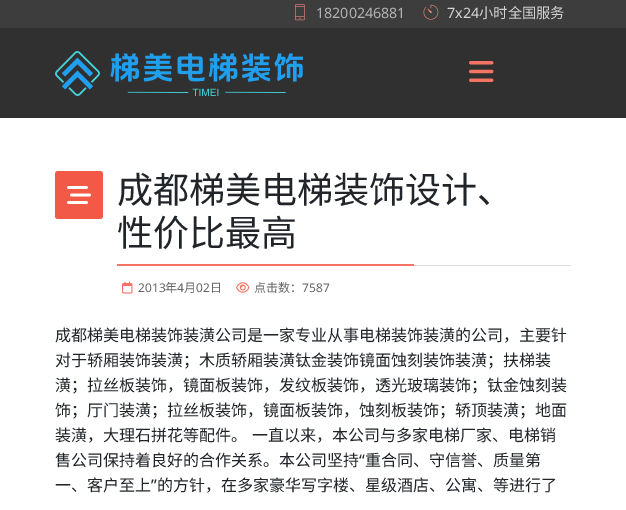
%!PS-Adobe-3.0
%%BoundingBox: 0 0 626 510
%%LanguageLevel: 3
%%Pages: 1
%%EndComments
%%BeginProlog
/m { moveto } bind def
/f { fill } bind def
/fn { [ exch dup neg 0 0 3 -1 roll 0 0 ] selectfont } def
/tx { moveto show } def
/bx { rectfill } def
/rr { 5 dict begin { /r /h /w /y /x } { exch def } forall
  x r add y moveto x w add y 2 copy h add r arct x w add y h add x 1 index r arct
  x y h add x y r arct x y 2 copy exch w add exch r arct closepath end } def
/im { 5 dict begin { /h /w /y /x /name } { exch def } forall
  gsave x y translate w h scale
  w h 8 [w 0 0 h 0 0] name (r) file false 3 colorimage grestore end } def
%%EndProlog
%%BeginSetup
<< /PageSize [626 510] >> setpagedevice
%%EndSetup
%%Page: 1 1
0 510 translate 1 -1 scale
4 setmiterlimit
1 setgray
0 0 626 510 bx
0.239 setgray
0 0 626 28 bx
(image0.raw) 295 4 10 17 im
/NotoSans-Regular 14.25 fn
0.702 setgray
(18200246881) 316 18 tx
(image1.raw) 423 4 16 16 im
0.831 setgray
(7x24) 447 18 tx
/NotoSansCJKSC-Regular 14.25 fn
(小时全国服务) 479 18 tx
0.188 setgray
0 28 626 90 bx
(image2.raw) 55 51 248 45 im
(image3.raw) 469 61 25 21 im
0.949 0.353 0.278 setrgbcolor
55 171 48 48 3 rr f
(image4.raw) 67 186 24 18 im
0.867 setgray
117 265 454 1 bx
/NotoSansCJKSC-Regular 36 fn
0.129 0.145 0.161 setrgbcolor
(成都梯美电梯装饰设计、) 117 203 tx
(性价比最高) 117 246 tx
0.957 0.451 0.388 setrgbcolor
117 264 297 2 1 rr f
(image5.raw) 122 281 11 13 im
/NotoSans-Regular 12 fn
0.4 setgray
(2013) 138 292 tx
/NotoSansCJKSC-Regular 12 fn
(年) 165 292 tx
/NotoSans-Regular 12 fn
(4) 177 292 tx
/NotoSansCJKSC-Regular 12 fn
(月) 184 292 tx
/NotoSans-Regular 12 fn
(02) 196 292 tx
/NotoSansCJKSC-Regular 12 fn
(日) 210 292 tx
(image6.raw) 236 282 14 11 im
(点击数：) 254 292 tx
/NotoSans-Regular 12 fn
(7587) 302 292 tx
/NotoSansCJKSC-Regular 16 fn
0.129 0.145 0.161 setrgbcolor
(成都梯美电梯装饰装潢公司是一家专业从事电梯装饰装潢的公司，主要针) 55 341 tx
(对于轿厢装饰装潢；木质轿厢装潢钛金装饰镜面蚀刻装饰装潢；扶梯装) 55 366 tx
(潢；拉丝板装饰，镜面板装饰，发纹板装饰，透光玻璃装饰；钛金蚀刻装) 55 391 tx
(饰；厅门装潢；拉丝板装饰，镜面板装饰，蚀刻板装饰；轿顶装潢；地面) 55 416 tx
55 441 m 1 0 32 (装潢，大理石拼花等配件。 一直以来，本公司与多家电梯厂家、电梯销) widthshow
(售公司保持着良好的合作关系。本公司坚持) 55 466 tx
/NotoSans-Regular 16 fn
(“) 359 466 tx
/NotoSansCJKSC-Regular 16 fn
(重合同、守信誉、质量第) 365 466 tx
(一、客户至上) 55 491 tx
/NotoSans-Regular 16 fn
(”) 151 491 tx
/NotoSansCJKSC-Regular 16 fn
(的方针，在多家豪华写字楼、星级酒店、公寓、等进行了) 157 491 tx
showpage
%%EOF
